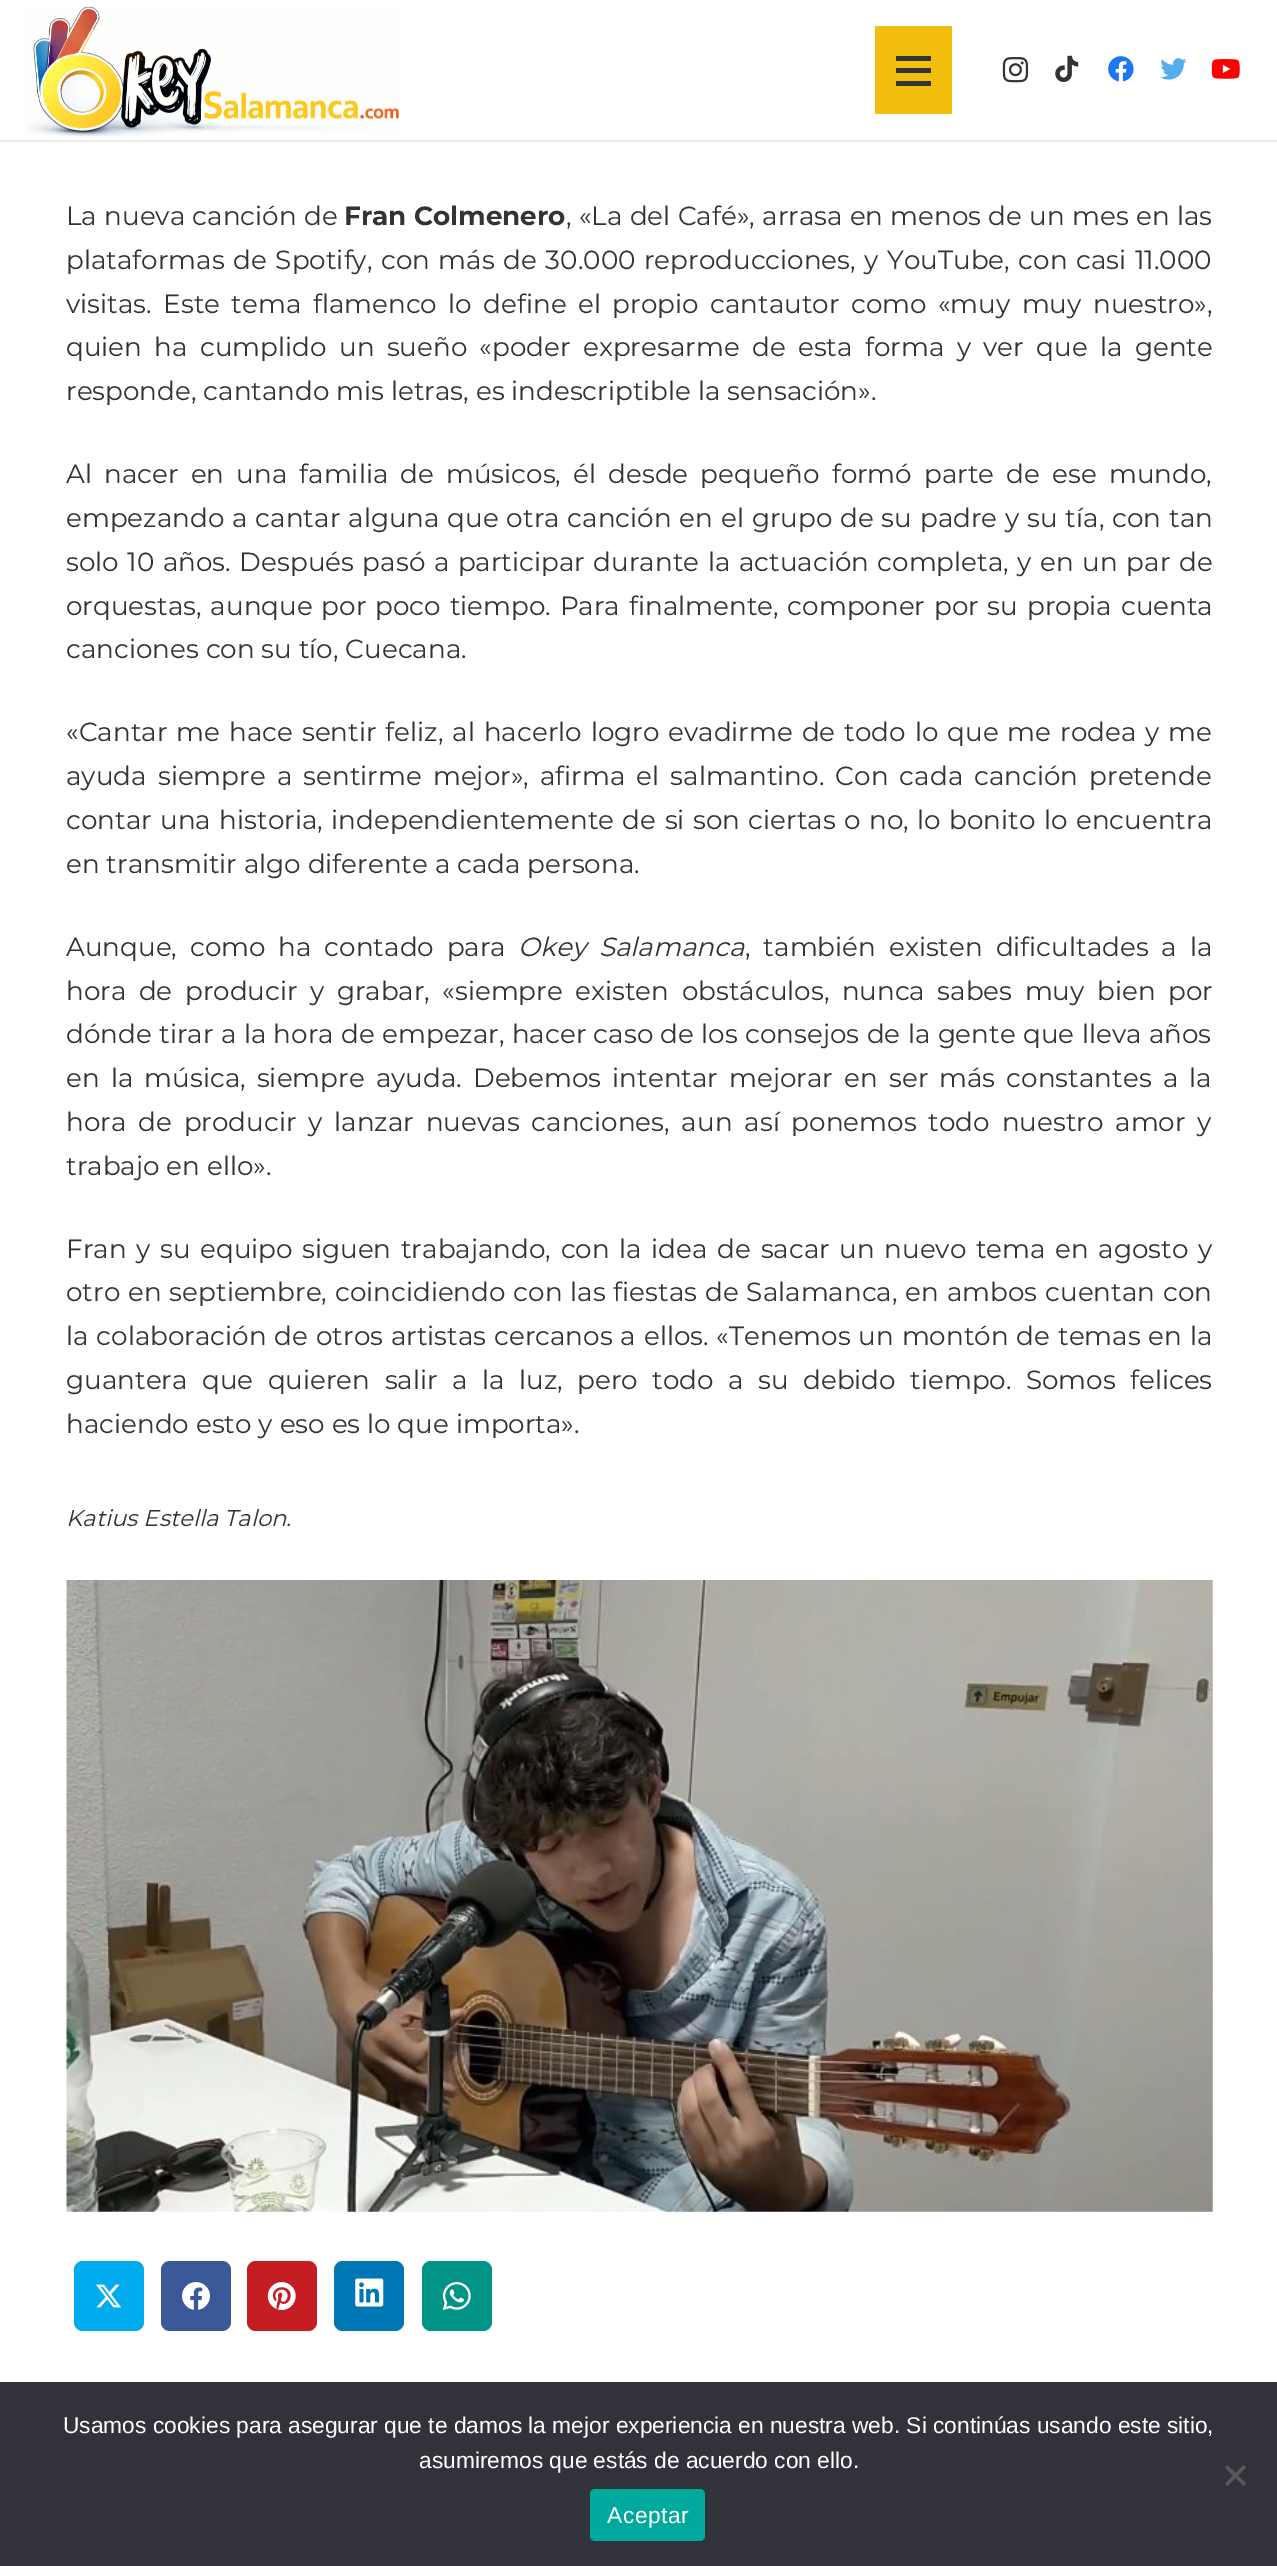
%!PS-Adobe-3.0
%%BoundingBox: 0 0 1277 2566
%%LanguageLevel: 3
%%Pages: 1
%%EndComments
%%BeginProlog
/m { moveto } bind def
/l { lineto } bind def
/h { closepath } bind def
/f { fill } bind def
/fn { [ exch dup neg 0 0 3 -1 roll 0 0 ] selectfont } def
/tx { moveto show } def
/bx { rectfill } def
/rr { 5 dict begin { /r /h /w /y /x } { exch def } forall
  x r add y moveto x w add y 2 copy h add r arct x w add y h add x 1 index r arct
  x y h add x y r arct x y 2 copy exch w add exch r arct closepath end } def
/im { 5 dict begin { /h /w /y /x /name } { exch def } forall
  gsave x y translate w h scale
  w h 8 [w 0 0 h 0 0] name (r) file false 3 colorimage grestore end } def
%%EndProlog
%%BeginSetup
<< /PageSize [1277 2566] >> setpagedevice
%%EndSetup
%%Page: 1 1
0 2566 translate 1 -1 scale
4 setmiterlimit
1 setgray
0 0 1277 2566 bx
0.922 setgray
0 140 m 0 142 l 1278 142 l 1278 2 l 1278 140 l h f
(image0.raw) 26 6 373 131 im
0.949 0.749 0.055 setrgbcolor
875 26 77 88 bx
0.2 setgray
896 68 35 5 bx
896 56 35 5 bx
896 81 35 5 bx
(image1.raw) 1002 57 27 26 im
(image2.raw) 1055 55 24 27 im
(image3.raw) 1108 56 26 26 im
(image4.raw) 1160 58 27 22 im
(image5.raw) 1211 59 29 20 im
/Montserrat-Thin 26.25 fn
66 225 m 0.4 0 32 (La nueva canción de) widthshow
/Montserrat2-Thin 26.25 fn
(Fran Colmenero) 344 225 tx
/Montserrat-Thin 26.25 fn
566 225 m 0.4 0 32 (, «La del Café», arrasa en menos de un mes en las) widthshow
66 269 m 1.75 0 32 (plataformas de Spotify, con más de 30.000 reproducciones, y YouTube, con casi 11.000) widthshow
66 313 m 4.6 0 32 (visitas. Este tema flamenco lo define el propio cantautor como «muy muy nuestro»,) widthshow
66 356 m 5.5 0 32 (quien ha cumplido un sueño «poder expresarme de esta forma y ver que la gente) widthshow
(responde, cantando mis letras, es indescriptible la sensación».) 66 400 tx
66 483 m 5.25 0 32 (Al nacer en una familia de músicos, él desde pequeño formó parte de ese mundo,) widthshow
66 527 m 1 0 32 (empezando a cantar alguna que otra canción en el grupo de su padre y su tía, con tan) widthshow
66 571 m 1.7 0 32 (solo 10 años. Después pasó a participar durante la actuación completa, y en un par de) widthshow
66 615 m 2 0 32 (orquestas, aunque por poco tiempo. Para finalmente, componer por su propia cuenta) widthshow
(canciones con su tío, Cuecana.) 66 658 tx
66 741 m 2.1 0 32 («Cantar me hace sentir feliz, al hacerlo logro evadirme de todo lo que me rodea y me) widthshow
66 785 m 4.25 0 32 (ayuda siempre a sentirme mejor», afirma el salmantino. Con cada canción pretende) widthshow
66 829 m 1.6 0 32 (contar una historia, independientemente de si son ciertas o no, lo bonito lo encuentra) widthshow
(en transmitir algo diferente a cada persona.) 66 873 tx
66 956 m 6 0 32 (Aunque, como ha contado para) widthshow
/Montserrat-ThinItalic 26.25 fn
518 956 m 6 0 32 (Okey Salamanca) widthshow
/Montserrat-Thin 26.25 fn
745 956 m 6 0 32 (, también existen dificultades a la) widthshow
66 1000 m 5.6 0 32 (hora de producir y grabar, «siempre existen obstáculos, nunca sabes muy bien por) widthshow
66 1043 m 0.5 0 32 (dónde tirar a la hora de empezar, hacer caso de los consejos de la gente que lleva años) widthshow
66 1087 m 4.25 0 32 (en la música, siempre ayuda. Debemos intentar mejorar en ser más constantes a la) widthshow
66 1131 m 5 0 32 (hora de producir y lanzar nuevas canciones, aun así ponemos todo nuestro amor y) widthshow
(trabajo en ello».) 66 1175 tx
66 1258 m 2.75 0 32 (Fran y su equipo siguen trabajando, con la idea de sacar un nuevo tema en agosto y) widthshow
66 1301 m 1 0 32 (otro en septiembre, coincidiendo con las fiestas de Salamanca, en ambos cuentan con) widthshow
66 1345 m 1 0 32 (la colaboración de otros artistas cercanos a ellos. «Tenemos un montón de temas en la) widthshow
66 1389 m 7.6 0 32 (guantera que quieren salir a la luz, pero todo a su debido tiempo. Somos felices) widthshow
(haciendo esto y eso es lo que importa».) 66 1433 tx
/Montserrat-ThinItalic 22.75 fn
(Katius Estella Talon.) 66 1526 tx
(image6.raw) 66 1580 1147 632 im
0 0.675 0.929 setrgbcolor
74 2261 70 70 9 rr f
(image7.raw) 96 2284 25 24 im
0.231 0.349 0.596 setrgbcolor
161 2261 70 70 9 rr f
(image8.raw) 182 2282 28 28 im
0.776 0.114 0.145 setrgbcolor
247 2261 70 70 9 rr f
(image9.raw) 267 2282 29 28 im
0 0.467 0.71 setrgbcolor
334 2261 70 70 9 rr f
(image10.raw) 355 2278 29 29 im
0 0.58 0.529 setrgbcolor
422 2261 70 70 9 rr f
(image11.raw) 442 2282 29 28 im
0.196 0.196 0.227 setrgbcolor
0 2382 1277 184 bx
/LiberationSans-Regular 22.75 fn
1 setgray
(Usamos cookies para asegurar que te damos la mejor experiencia en nuestra web. Si continúas usando este sitio,) 63 2433 tx
(asumiremos que estás de acuerdo con ello.) 419 2468 tx
0.349 0.349 0.365 setrgbcolor
1243.5 2465 m 1246 2467.5 l 1227.5 2486 l 1225 2483.5 l h f
1225 2467.5 m 1227.5 2465 l 1246 2483.5 l 1243.5 2486 l h f
0 0.663 0.616 setrgbcolor
590 2489 115 52 5 rr f
1 setgray
607 2523 m 0.5 0 (Aceptar) ashow
showpage
%%EOF
